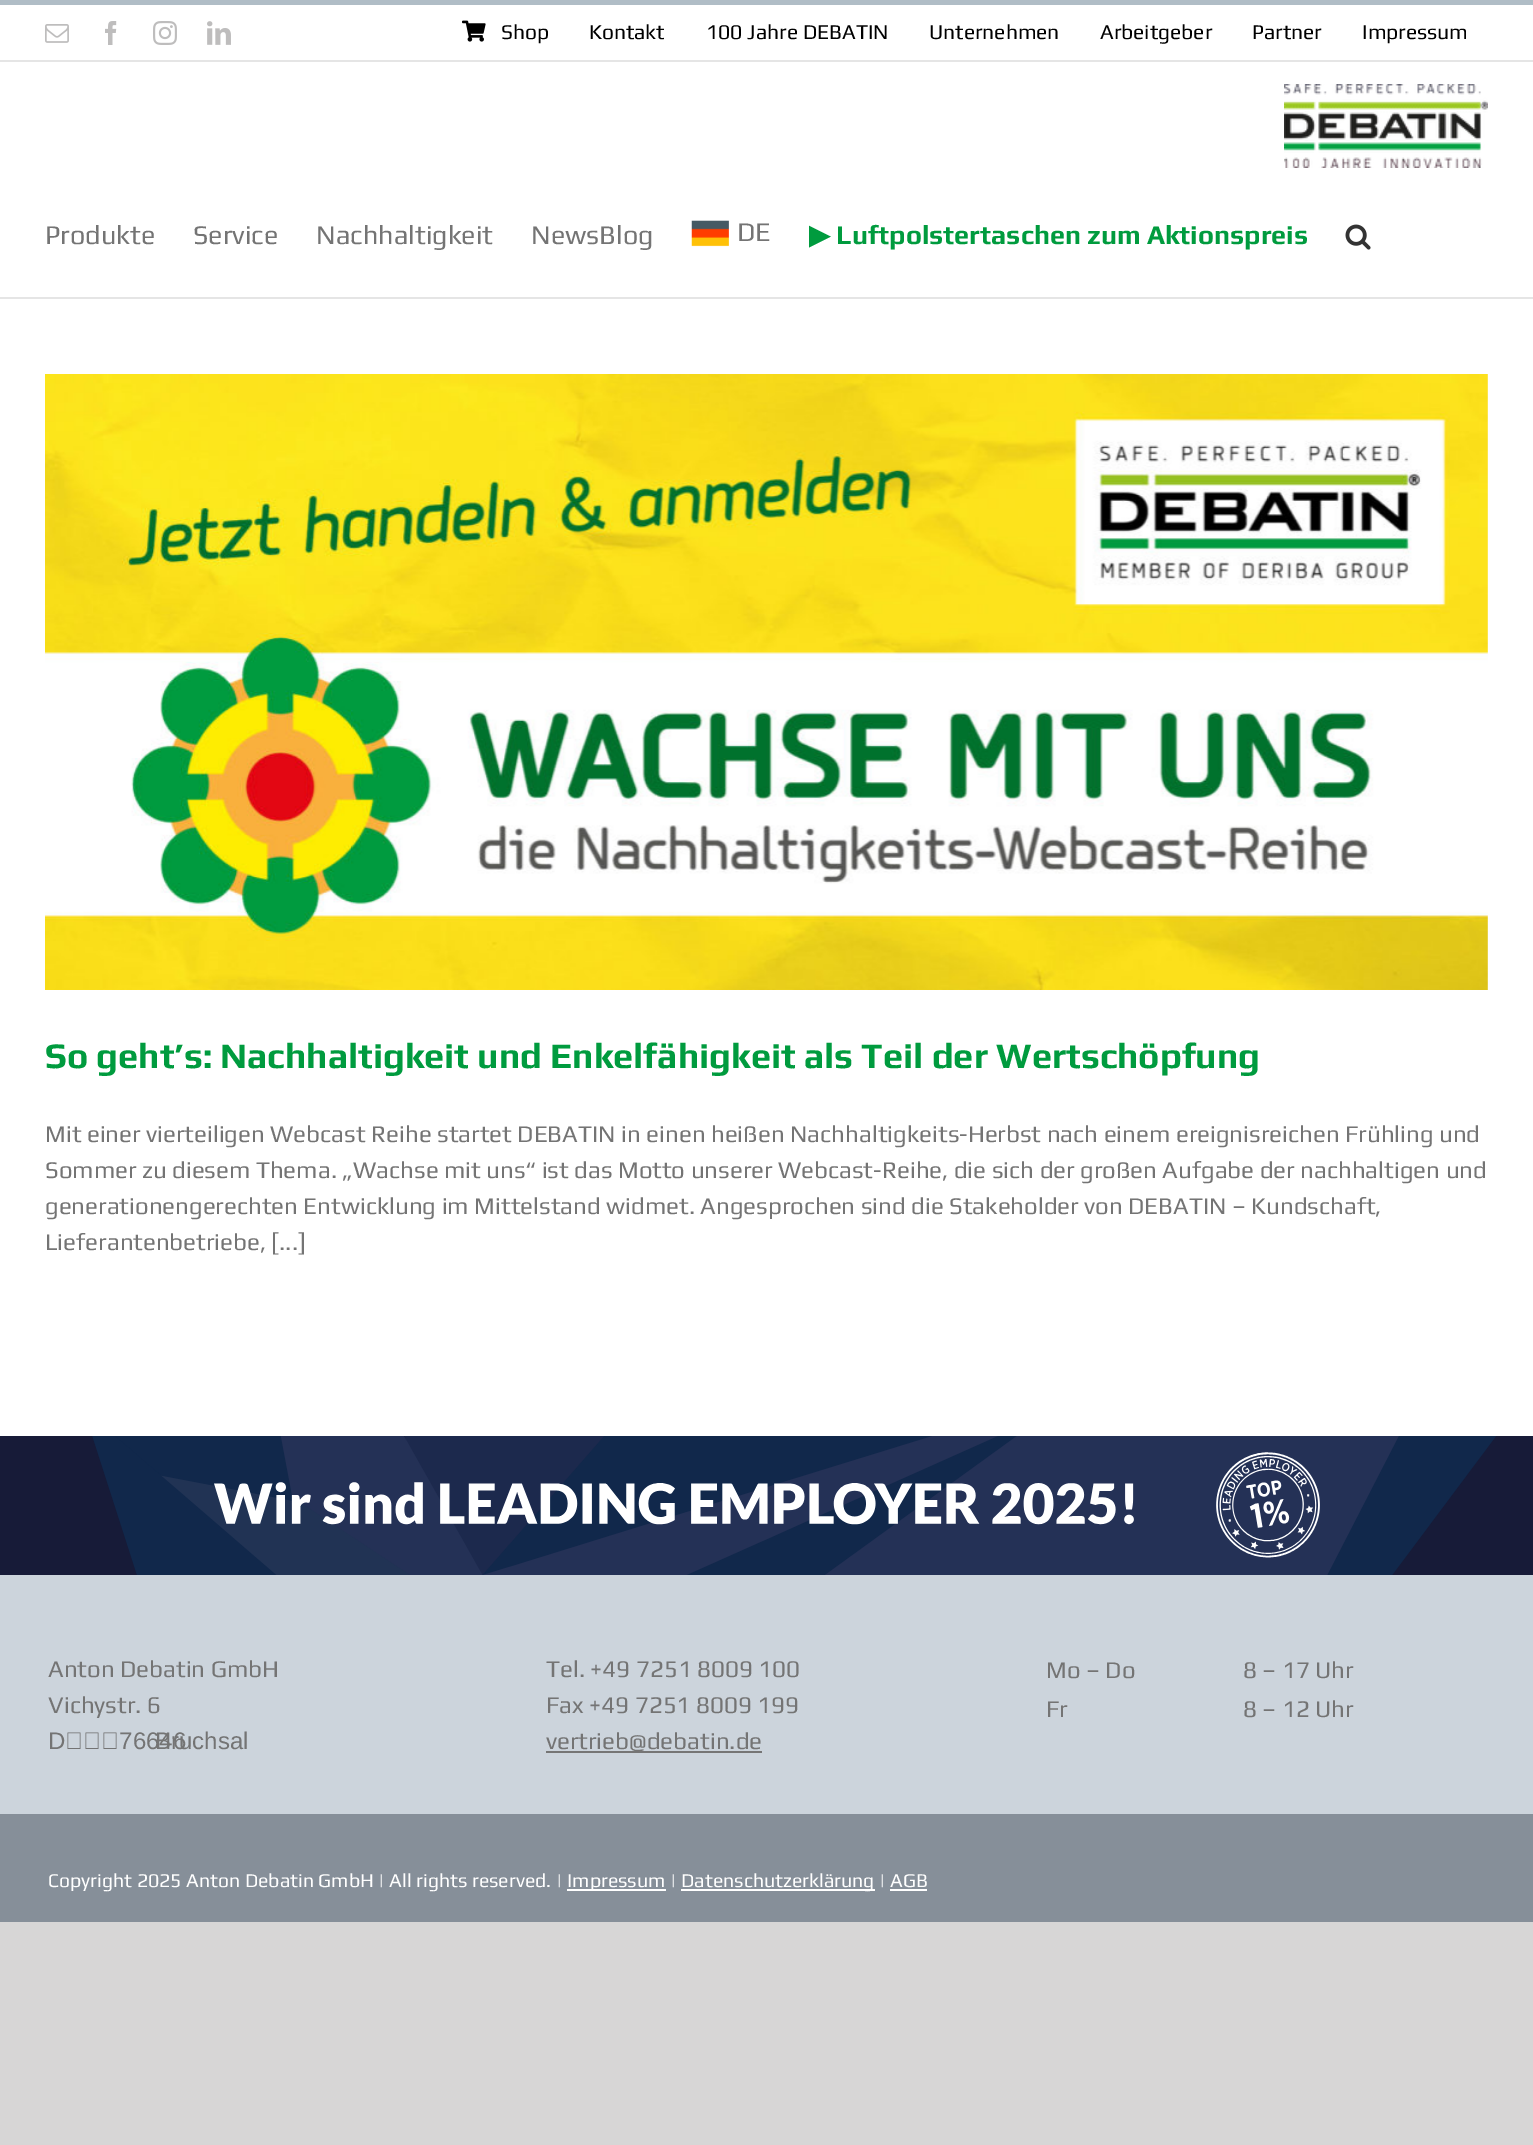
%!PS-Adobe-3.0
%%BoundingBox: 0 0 1533 2145
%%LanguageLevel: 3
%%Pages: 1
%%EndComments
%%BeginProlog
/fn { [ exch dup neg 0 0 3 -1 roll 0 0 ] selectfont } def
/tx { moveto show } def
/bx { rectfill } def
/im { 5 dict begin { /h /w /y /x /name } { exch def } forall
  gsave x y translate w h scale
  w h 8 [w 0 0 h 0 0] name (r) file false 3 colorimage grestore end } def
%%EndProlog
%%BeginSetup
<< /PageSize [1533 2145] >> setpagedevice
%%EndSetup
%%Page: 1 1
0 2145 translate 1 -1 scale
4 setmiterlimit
0.843 0.839 0.839 setrgbcolor
0 0 1533 2145 bx
1 setgray
0 5 1533 1431 bx
0.69 0.741 0.776 setrgbcolor
0 0 1533 5 bx
0.898 setgray
0 60 1533 2 bx
(image0.raw) 45 24 24 19 im
(image1.raw) 105 21 12 24 im
(image2.raw) 153 21 24 24 im
(image3.raw) 207 21 24 24 im
(image4.raw) 462 20 24 22 im
/Play-Regular 21 fn
0 setgray
(Shop) 501 39 tx
(Kontakt) 589 39 tx
(100 Jahre DEBATIN) 706 39 tx
(Unternehmen) 929 39 tx
(Arbeitgeber) 1100 39 tx
(Partner) 1252 39 tx
(Impressum) 1362 39 tx
0.898 setgray
0 297 1533 2 bx
(image5.raw) 1284 84 204 84 im
/Play-Regular 27 fn
0.455 setgray
(Produkte) 45 244 tx
(Service) 193 244 tx
(Nachhaltigkeit) 316 244 tx
(NewsBlog) 531 244 tx
(image6.raw) 691 220 38 27 im
(DE) 737 241 tx
/DejaVuSans-Bold 27 fn
0 0.608 0.243 setrgbcolor
(▶) 809 244 tx
/Play-Bold 27 fn
(Luftpolstertaschen zum Aktionspreis) 836 244 tx
(image7.raw) 1345 224 26 26 im
(image8.raw) 45 374 1443 616 im
/Play-Bold 36 fn
(So geht’s: Nachhaltigkeit und Enkelfähigkeit als Teil der Wertschöpfung) 45 1068 tx
/Play-Regular 24 fn
0.455 setgray
(Mit einer vierteiligen Webcast Reihe startet DEBATIN in einen heißen Nachhaltigkeits-Herbst nach einem ereignisreichen Frühling und) 45 1142 tx
(Sommer zu diesem Thema. „Wachse mit uns“ ist das Motto unserer Webcast-Reihe, die sich der großen Aufgabe der nachhaltigen und) 45 1178 tx
(generationengerechten Entwicklung im Mittelstand widmet. Angesprochen sind die Stakeholder von DEBATIN – Kundschaft,) 45 1214 tx
(Lieferantenbetriebe, [...]) 45 1250 tx
0.09 0.106 0.22 setrgbcolor
0 1436 1533 139 bx
(image9.raw) 92 1436 1404 139 im
0.8 0.831 0.863 setrgbcolor
0 1575 1533 239 bx
0.455 setgray
(Anton Debatin GmbH) 48 1677 tx
(Vichystr. 6) 48 1713 tx
/LiberationSans-Regular 24 fn
(D‑76646) 48 1749 tx
(Bruchsal) 155 1749 tx
/Play-Regular 24 fn
(Tel. +49 7251 8009 100) 546 1677 tx
(Fax +49 7251 8009 199) 546 1713 tx
0.459 setgray
546 1751 216 2 bx
0.455 setgray
(vertrieb@debatin.de) 546 1749 tx
(Mo – Do) 1046 1678 tx
(8 – 17 Uhr) 1243 1678 tx
(Fr) 1046 1717 tx
(8 – 12 Uhr) 1243 1717 tx
0.525 0.561 0.6 setrgbcolor
0 1814 1533 108 bx
/Play-Regular 19.5 fn
1 setgray
(Copyright 2025 Anton Debatin GmbH | All rights reserved. |) 48 1887 tx
567 1889 99 2 bx
(Impressum |) 567 1887 tx
681 1889 194 2 bx
(Datenschutzerklärung | AGB) 681 1887 tx
890 1889 37 2 bx
showpage
%%EOF
